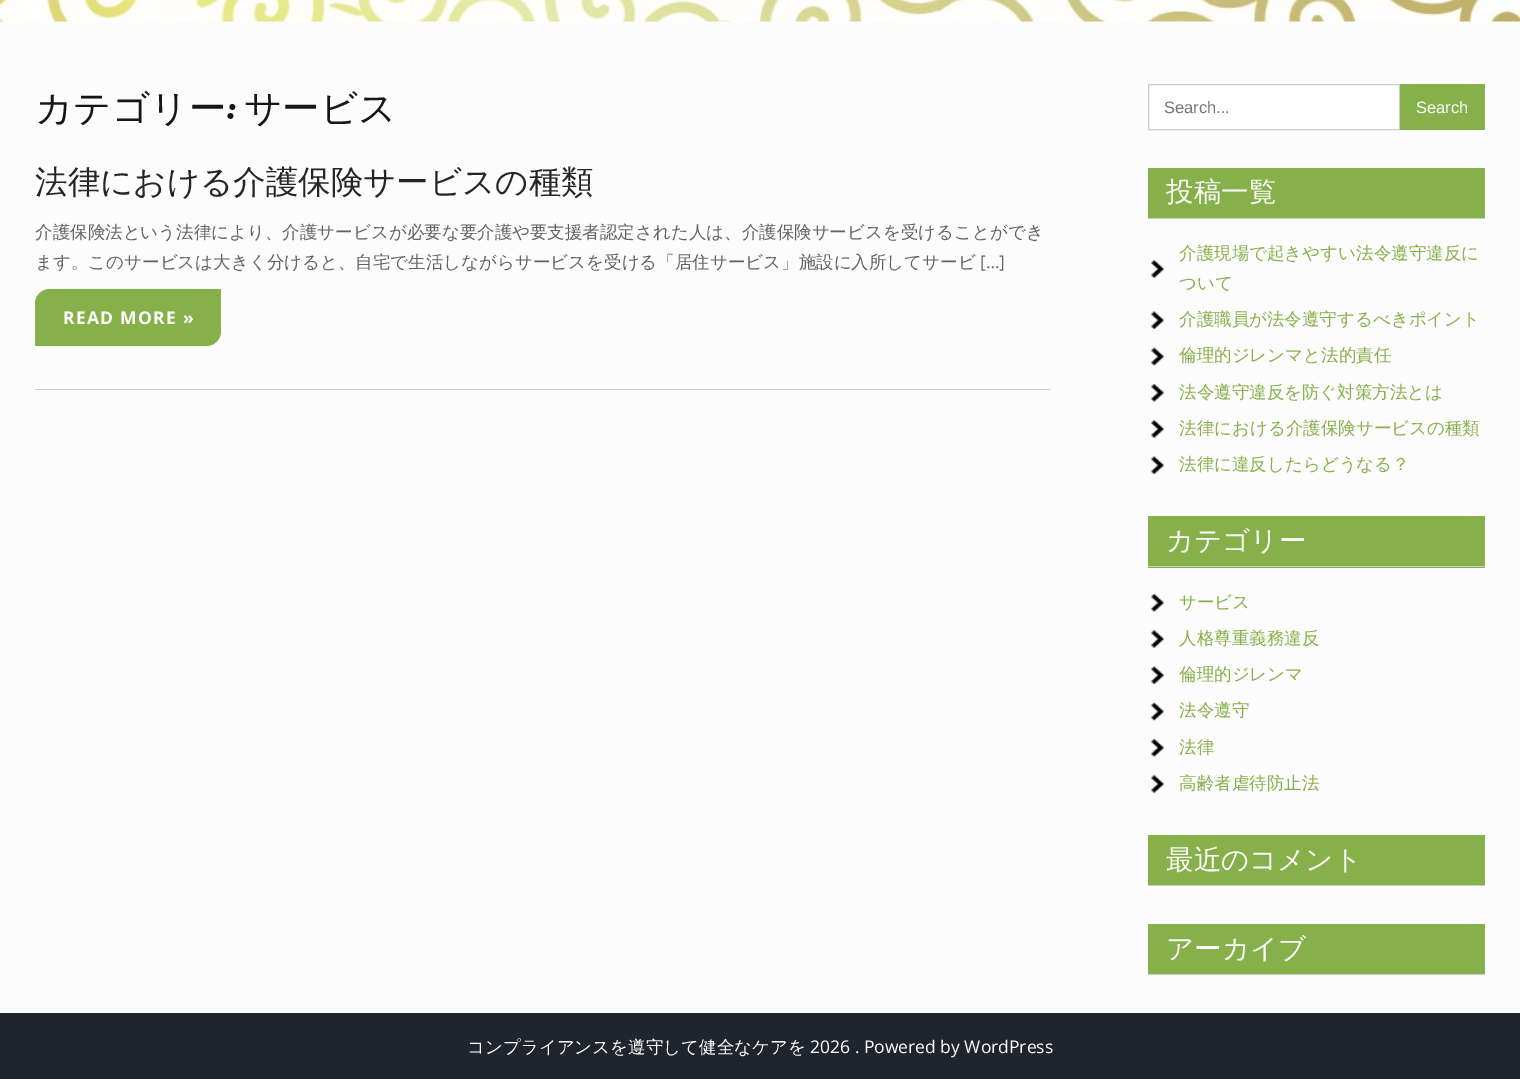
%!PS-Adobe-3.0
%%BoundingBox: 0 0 1520 1079
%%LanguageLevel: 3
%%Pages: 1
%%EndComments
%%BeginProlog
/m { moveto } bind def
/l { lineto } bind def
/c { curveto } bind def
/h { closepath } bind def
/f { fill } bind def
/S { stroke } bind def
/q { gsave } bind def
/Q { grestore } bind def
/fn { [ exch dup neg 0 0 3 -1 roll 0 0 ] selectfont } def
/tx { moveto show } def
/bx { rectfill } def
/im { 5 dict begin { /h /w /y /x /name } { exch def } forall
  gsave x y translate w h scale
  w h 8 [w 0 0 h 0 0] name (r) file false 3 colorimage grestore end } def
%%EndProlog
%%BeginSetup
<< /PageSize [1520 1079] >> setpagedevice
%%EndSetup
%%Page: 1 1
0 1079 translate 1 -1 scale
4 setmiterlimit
0.988 setgray
0 0 1520 1079 bx
(image0.raw) 0 0 1520 22 im
/WenQuanYiZenHei-Medium 37.5 fn
0.082 0.086 0.094 setrgbcolor
(カテゴリー) 35 121 tx
/Lobster-Regular 37.5 fn
(:) 226 121 tx
/WenQuanYiZenHei-Medium 37.5 fn
(サービス) 244 121 tx
0.8 setgray
35 389 1015 1 bx
/WenQuanYiZenHei-Medium 32.5 fn
0.145 setgray
(法律における介護保険サービスの種類) 35 193 tx
/WenQuanYiZenHei-Medium 17.5 fn
0.384 setgray
(介護保険法という法律により、介護サービスが必要な要介護や要支援者認定された人は、介護保険サービスを受けることができ) 35 238 tx
(ます。このサービスは大きく分けると、自宅で生活しながらサービスを受ける「居住サービス」施設に入所してサービ) 35 268 tx
/OpenSans-Regular 17.5 fn
([…]) 980 268 tx
0.525 0.69 0.286 setrgbcolor
50 289 m 221 289 l 221 331 l 221 339.5 214.5 346 206 346 c 35 346 l 35 304 l 35 295.5 41.5 289 50 289 c h f
/OpenSans-Bold 17.5 fn
1 setgray
63 324 m 1.25 0 (READ MORE ») ashow
1148.5 84.5 m 1399.5 84.5 l 1399.5 129.5 l 1148.5 129.5 l h q f Q
0.8 setgray
S
/LiberationSans-Regular 16.5 fn
0.459 setgray
(Search...) 1164 113 tx
0.525 0.69 0.286 setrgbcolor
1400 84 85 46 bx
1 setgray
(Search) 1416 113 tx
0.525 0.69 0.286 setrgbcolor
1148 168 337 50 bx
0.8 setgray
1148 218 337 1 bx
/WenQuanYiZenHei-Medium 27.5 fn
1 setgray
(投稿一覧) 1166 201 tx
(image1.raw) 1151 260 13 18 im
/WenQuanYiZenHei-Medium 17.5 fn
0.525 0.69 0.286 setrgbcolor
(介護現場で起きやすい法令遵守違反に) 1179 259 tx
(ついて) 1179 289 tx
(image2.raw) 1151 311 13 18 im
(介護職員が法令遵守するべきポイント) 1179 325 tx
(image3.raw) 1151 347 13 19 im
(倫理的ジレンマと法的責任) 1179 361 tx
(image4.raw) 1151 383 13 19 im
(法令遵守違反を防ぐ対策方法とは) 1179 398 tx
(image5.raw) 1151 420 13 18 im
(法律における介護保険サービスの種類) 1179 434 tx
(image2.raw) 1151 456 13 18 im
(法律に違反したらどうなる？) 1179 470 tx
1148 516 337 52 bx
0.8 setgray
1148 566 337 1 bx
/WenQuanYiZenHei-Medium 27.5 fn
1 setgray
(カテゴリー) 1166 550 tx
(image4.raw) 1151 593 13 19 im
/WenQuanYiZenHei-Medium 17.5 fn
0.525 0.69 0.286 setrgbcolor
(サービス) 1179 608 tx
(image5.raw) 1151 630 13 18 im
(人格尊重義務違反) 1179 644 tx
(image2.raw) 1151 666 13 18 im
(倫理的ジレンマ) 1179 680 tx
(image3.raw) 1151 702 13 19 im
(法令遵守) 1179 716 tx
(image4.raw) 1151 738 13 19 im
(法律) 1179 753 tx
(image5.raw) 1151 775 13 18 im
(高齢者虐待防止法) 1179 789 tx
1148 835 337 50 bx
0.8 setgray
1148 885 337 1 bx
/WenQuanYiZenHei-Medium 27.5 fn
1 setgray
(最近のコメント) 1166 869 tx
0.525 0.69 0.286 setrgbcolor
1148 924 337 50 bx
0.8 setgray
1148 974 337 1 bx
1 setgray
(アーカイブ) 1166 958 tx
0.125 0.141 0.173 setrgbcolor
0 1013 1520 66 bx
/WenQuanYiZenHei-Medium 17.5 fn
1 setgray
(コンプライアンスを遵守して健全なケアを) 467 1053 tx
/OpenSans-Regular 17.5 fn
(2026 . Powered by WordPress) 810 1053 tx
showpage
%%EOF
